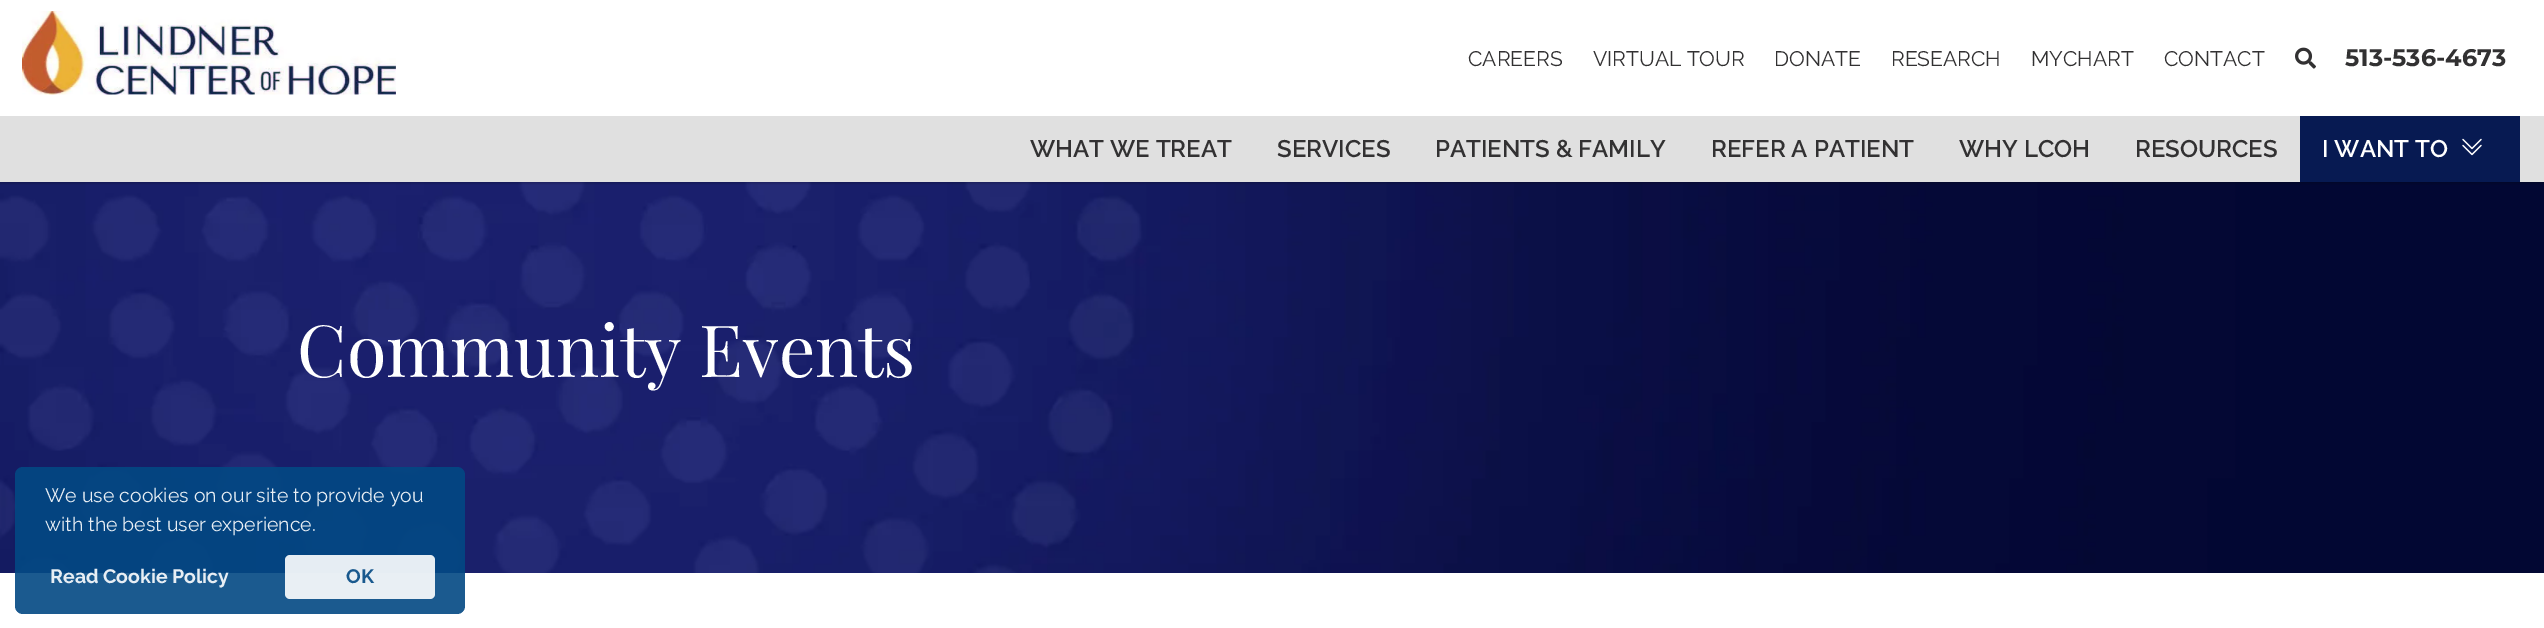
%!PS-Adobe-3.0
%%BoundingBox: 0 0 2544 628
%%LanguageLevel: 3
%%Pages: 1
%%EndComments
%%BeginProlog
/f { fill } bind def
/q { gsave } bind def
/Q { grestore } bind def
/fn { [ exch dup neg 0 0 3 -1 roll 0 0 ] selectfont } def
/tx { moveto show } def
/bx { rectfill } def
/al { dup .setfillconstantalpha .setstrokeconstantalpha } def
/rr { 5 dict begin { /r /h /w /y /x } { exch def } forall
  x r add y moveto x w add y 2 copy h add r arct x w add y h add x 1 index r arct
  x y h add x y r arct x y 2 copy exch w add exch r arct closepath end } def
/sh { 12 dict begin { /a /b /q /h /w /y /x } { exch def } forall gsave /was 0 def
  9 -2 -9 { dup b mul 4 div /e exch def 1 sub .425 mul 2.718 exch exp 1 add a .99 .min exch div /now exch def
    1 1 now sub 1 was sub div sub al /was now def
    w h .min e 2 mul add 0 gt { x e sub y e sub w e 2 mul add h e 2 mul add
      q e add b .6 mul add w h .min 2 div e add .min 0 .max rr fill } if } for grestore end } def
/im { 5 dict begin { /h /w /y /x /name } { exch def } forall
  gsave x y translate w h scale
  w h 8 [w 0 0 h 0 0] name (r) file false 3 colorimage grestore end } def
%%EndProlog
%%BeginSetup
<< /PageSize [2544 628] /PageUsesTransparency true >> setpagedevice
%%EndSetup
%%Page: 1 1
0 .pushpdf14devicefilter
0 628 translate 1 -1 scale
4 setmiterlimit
1 setgray
0 0 2544 628 bx
(image3.raw) 0 182 2544 391 im
q
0 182 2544 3 rectclip
0 setgray
0 2 2544 181 0 1.5 0.25 sh
Q
(image0.raw) 22 11 374 84 im
/Raleway-Regular 21 fn
0.196 0.192 0.196 setrgbcolor
(CAREERS) 1468 66 tx
(VIRTUAL TOUR) 1593 66 tx
(DONATE) 1774 66 tx
(RESEARCH) 1891 66 tx
(MYCHART) 2031 66 tx
(CONTACT) 2164 66 tx
(image1.raw) 2295 47 21 22 im
/Montserrat-Thin 24 fn
(513-536-4673) 2345 66 tx
0.878 setgray
0 116 2544 66 bx
/Raleway-SemiBold 24 fn
0.196 0.192 0.196 setrgbcolor
(WHAT WE TREAT) 1030 157 tx
(SERVICES) 1277 157 tx
(PATIENTS & FAMILY) 1435 157 tx
(REFER A PATIENT) 1711 157 tx
(WHY LCOH) 1959 157 tx
(RESOURCES) 2135 157 tx
0.027 0.102 0.322 setrgbcolor
2300 116 220 66 bx
1 setgray
(I WANT TO) 2322 157 tx
(image2.raw) 2462 138 20 18 im
/PlayfairDisplay-Regular 72 fn
(Community Events) 297 377 tx
0.9 al
0.008 0.282 0.514 setrgbcolor
15 467 450 147 8 rr f
/Raleway-Regular 19.5 fn
1 al
0.91 0.933 0.957 setrgbcolor
(We use cookies on our site to provide you) 45 502 tx
(with the best user experience.) 45 531 tx
/Raleway-Bold 19.5 fn
(Read Cookie Policy) 50 583 tx
0.9 al
1 setgray
285 555 150 44 5 rr f
1 al
0.098 0.349 0.557 setrgbcolor
(OK) 346 583 tx
.poppdf14devicefilter showpage
%%EOF
